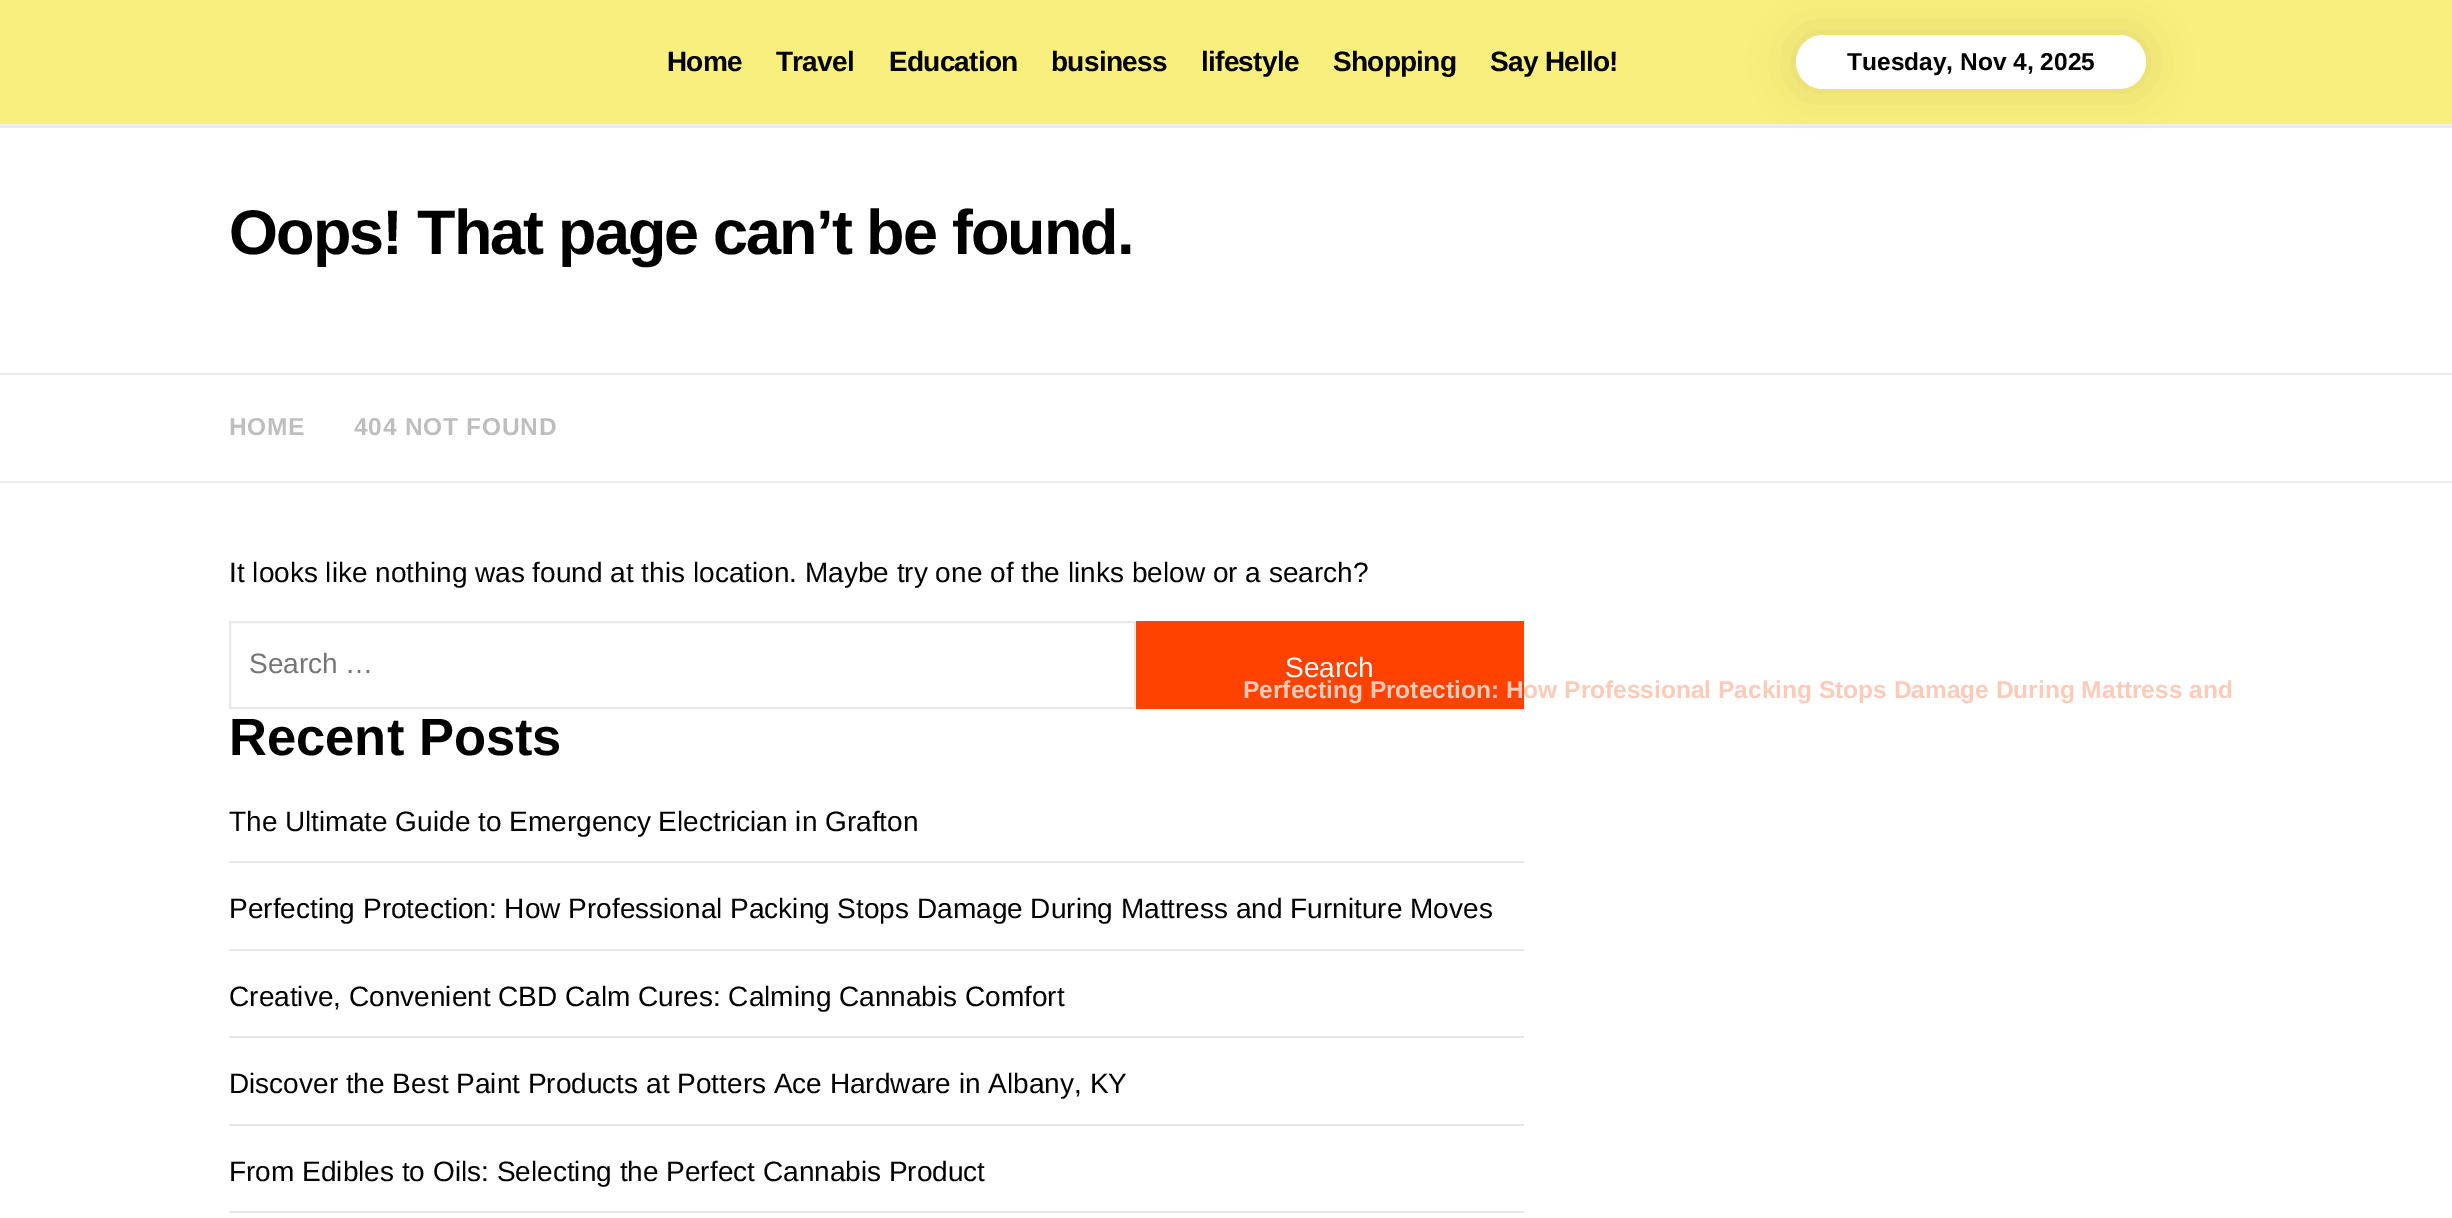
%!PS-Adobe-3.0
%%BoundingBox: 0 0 2452 1218
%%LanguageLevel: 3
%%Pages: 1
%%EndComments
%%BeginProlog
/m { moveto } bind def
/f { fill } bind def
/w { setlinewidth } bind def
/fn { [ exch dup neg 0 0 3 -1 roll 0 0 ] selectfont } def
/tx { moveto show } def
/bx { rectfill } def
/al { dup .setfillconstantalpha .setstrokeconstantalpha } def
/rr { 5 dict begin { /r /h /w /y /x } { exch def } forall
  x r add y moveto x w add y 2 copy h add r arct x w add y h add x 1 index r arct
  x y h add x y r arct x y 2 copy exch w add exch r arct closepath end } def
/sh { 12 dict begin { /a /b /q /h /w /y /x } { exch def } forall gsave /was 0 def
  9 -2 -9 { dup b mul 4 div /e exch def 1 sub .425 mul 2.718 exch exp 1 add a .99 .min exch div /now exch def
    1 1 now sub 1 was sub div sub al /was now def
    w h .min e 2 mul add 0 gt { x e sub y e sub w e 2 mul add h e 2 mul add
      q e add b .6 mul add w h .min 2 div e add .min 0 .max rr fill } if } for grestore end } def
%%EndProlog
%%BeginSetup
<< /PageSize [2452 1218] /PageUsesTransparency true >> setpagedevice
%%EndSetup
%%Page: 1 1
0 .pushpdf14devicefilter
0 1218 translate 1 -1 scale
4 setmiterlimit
1 setgray
0 0 2452 1218 bx
0.976 0.937 0.486 setrgbcolor
0 0 2452 124 bx
0.933 setgray
0 124 2452 2 bx
/LiberationSans-Bold 28 fn
0 setgray
667 71 m -0.75 0 (Home) ashow
776 71 m -0.75 0 (Travel) ashow
889 71 m -0.75 0 (Education) ashow
1051 71 m -0.75 0 (business) ashow
1201 71 m -0.75 0 (lifestyle) ashow
1333 71 m -0.75 0 (Shopping) ashow
1490 71 m -0.75 0 (Say Hello!) ashow
0.922 setgray
0 126 2452 2 bx
0 setgray
1796 35 350 54 27 22 0.1 sh
1 setgray
1796 35 350 54 27 rr f
/LiberationSans-Bold 24.5 fn
0 setgray
(Tuesday, Nov 4, 2025) 1847 70 tx
0.922 setgray
0 373 2452 2 bx
/LiberationSans-Bold 63 fn
0 setgray
229 254 m -1.9 0 (Oops! That page can’t be found.) ashow
0.925 setgray
0 481 2452 2 bx
/LiberationSans-Bold 24.5 fn
0.749 0.741 0.741 setrgbcolor
229 435 m 0.75 0 (HOME) ashow
354 435 m 0.75 0 (404 NOT FOUND) ashow
/LiberationSans-Regular 28 fn
0 setgray
(It looks like nothing was found at this location. Maybe try one of the links below or a search?) 229 582 tx
0.91 setgray
2 w
230 622 905 86 rectstroke
0.459 setgray
(Search …) 249 673 tx
1 0.259 0 setrgbcolor
1136 621 388 88 bx
1 setgray
(Search) 1285 677 tx
/LiberationSans-Bold 52.5 fn
0 setgray
(Recent Posts) 229 755 tx
0.91 setgray
229 861 1295 2 bx
/LiberationSans-Regular 28 fn
0 setgray
(The Ultimate Guide to Emergency Electrician in Grafton) 229 831 tx
0.91 setgray
229 949 1295 2 bx
0 setgray
(Perfecting Protection: How Professional Packing Stops Damage During Mattress and Furniture Moves) 229 918 tx
0.91 setgray
229 1036 1295 2 bx
0 setgray
(Creative, Convenient CBD Calm Cures: Calming Cannabis Comfort) 229 1006 tx
0.91 setgray
229 1124 1295 2 bx
0 setgray
(Discover the Best Paint Products at Potters Ace Hardware in Albany, KY) 229 1093 tx
0.91 setgray
229 1211 1295 2 bx
0 setgray
(From Edibles to Oils: Selecting the Perfect Cannabis Product) 229 1181 tx
/LiberationSans-Bold 24.5 fn
1 0.792 0.722 setrgbcolor
(Perfecting Protection: How Professional Packing Stops Damage During Mattress and) 1243 698 tx
.poppdf14devicefilter showpage
%%EOF
